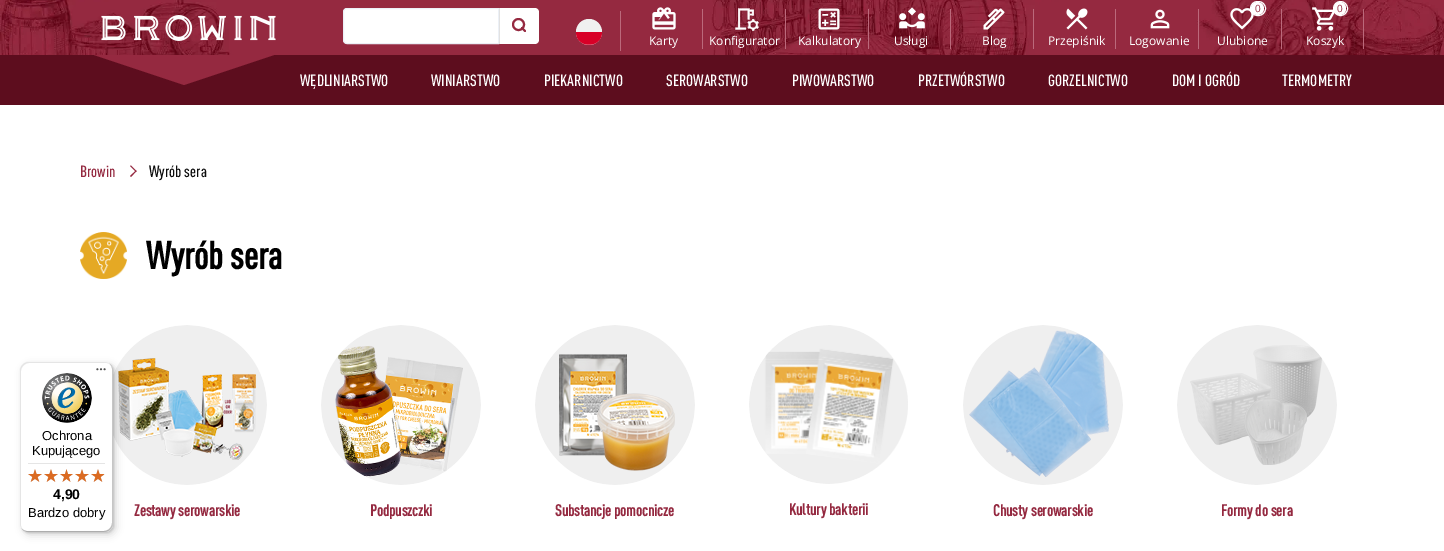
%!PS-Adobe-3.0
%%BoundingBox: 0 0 1444 551
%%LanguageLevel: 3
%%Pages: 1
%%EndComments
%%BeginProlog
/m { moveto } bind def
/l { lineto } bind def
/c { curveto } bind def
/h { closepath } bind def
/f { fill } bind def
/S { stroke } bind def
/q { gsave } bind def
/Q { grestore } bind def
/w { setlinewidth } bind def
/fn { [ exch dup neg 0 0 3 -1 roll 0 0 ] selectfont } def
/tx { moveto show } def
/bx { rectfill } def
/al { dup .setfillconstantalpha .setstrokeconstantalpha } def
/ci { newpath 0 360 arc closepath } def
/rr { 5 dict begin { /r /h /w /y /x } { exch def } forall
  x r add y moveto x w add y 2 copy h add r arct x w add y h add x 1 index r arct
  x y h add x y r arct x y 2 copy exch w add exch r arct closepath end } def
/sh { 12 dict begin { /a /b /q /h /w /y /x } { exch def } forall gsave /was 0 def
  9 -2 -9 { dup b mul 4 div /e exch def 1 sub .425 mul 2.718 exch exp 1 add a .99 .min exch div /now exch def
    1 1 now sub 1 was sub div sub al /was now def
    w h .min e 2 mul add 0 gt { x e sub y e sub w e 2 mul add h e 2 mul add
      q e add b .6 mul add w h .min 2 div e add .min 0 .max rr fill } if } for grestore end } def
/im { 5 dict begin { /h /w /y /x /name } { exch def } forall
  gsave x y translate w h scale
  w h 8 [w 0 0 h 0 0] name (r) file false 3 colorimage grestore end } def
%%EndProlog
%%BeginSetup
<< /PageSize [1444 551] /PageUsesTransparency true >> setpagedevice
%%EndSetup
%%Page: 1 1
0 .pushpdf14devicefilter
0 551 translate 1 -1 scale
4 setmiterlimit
1 setgray
0 0 1444 551 bx
(image0.raw) 0 0 1444 55 im
(image1.raw) 101 15 175 26 im
347 8.5 m 498.5 8.5 l 498.5 43.5 l 347 43.5 l 345 43.5 343.5 42 343.5 40 c 343.5 12 l 343.5 10 345 8.5 347 8.5 c h q f Q
0.925 0.941 0.965 setrgbcolor
S
1 setgray
499 8 m 535 8 l 537 8 539 10 539 12 c 539 40 l 539 42 537 44 535 44 c 499 44 l h f
0.886 setgray
499 8 1 36 bx
0.584 0.161 0.251 setrgbcolor
2 w
518.5 24.5 5.5 ci S
1 setlinecap
1 setlinejoin
525 31 m 522 28 l S
0.941 setgray
589 32 13 ci f
0.847 0 0.153 setrgbcolor
602 32 m 602 49 576 49 576 32 c f
0.733 0.412 0.482 setrgbcolor
620 11 1 40 bx
(image2.raw) 652 7 24 23 im
/OpenSans-Regular 12 fn
1 setgray
(Karty) 649 45 tx
0.733 0.412 0.482 setrgbcolor
702 9 1 40 bx
(image3.raw) 735 8 24 23 im
1 setgray
(Konfigurator) 709 45 tx
0.733 0.412 0.482 setrgbcolor
785 9 1 40 bx
(image4.raw) 818 8 22 22 im
1 setgray
(Kalkulatory) 798 45 tx
0.733 0.412 0.482 setrgbcolor
868 9 1 40 bx
(image5.raw) 899 7 26 22 im
1 setgray
(Usługi) 894 45 tx
0.733 0.412 0.482 setrgbcolor
950 9 1 40 bx
(image6.raw) 983 8 22 22 im
1 setgray
(Blog) 982 45 tx
0.733 0.412 0.482 setrgbcolor
1033 9 1 40 bx
(image7.raw) 1066 8 22 22 im
1 setgray
(Przepiśnik) 1048 45 tx
0.733 0.412 0.482 setrgbcolor
1115 9 1 40 bx
(image8.raw) 1150 9 20 20 im
1 setgray
(Logowanie) 1129 45 tx
0.733 0.412 0.482 setrgbcolor
1198 9 1 40 bx
(image9.raw) 1230 8 24 22 im
1 setgray
1 w
0 setlinecap
0 setlinejoin
1250.5 1.5 15 14 7 rr S
1257.5 8.5 6.5 ci f
/OpenSans-Regular 10 fn
0.58 0.161 0.251 setrgbcolor
(0) 1255 12 tx
/OpenSans-Regular 12 fn
1 setgray
(Ulubione) 1217 45 tx
0.733 0.412 0.482 setrgbcolor
1281 9 1 40 bx
(image10.raw) 1312 7 23 24 im
1 setgray
1340.5 8.5 7 ci S
1334 2 12 13 6 rr f
/OpenSans-Regular 10 fn
0.58 0.161 0.251 setrgbcolor
(0) 1337 12 tx
/OpenSans-Regular 12 fn
1 setgray
(Koszyk) 1306 45 tx
0.733 0.412 0.482 setrgbcolor
1363 9 1 40 bx
0.365 0.051 0.118 setrgbcolor
0 55 1444 50 bx
0.584 0.161 0.251 setrgbcolor
94 55 m 274 55 l 184 85 l h f
/DIN-Medium 16 fn
1 setgray
(WĘDLINIARSTWO) 300 86 tx
(WINIARSTWO) 431 86 tx
(PIEKARNICTWO) 544 86 tx
(SEROWARSTWO) 666 86 tx
(PIWOWARSTWO) 792 86 tx
(PRZETWÓRSTWO) 918 86 tx
(GORZELNICTWO) 1048 86 tx
(DOM I OGRÓD) 1172 86 tx
(TERMOMETRY) 1282 86 tx
0.58 0.161 0.251 setrgbcolor
(Browin) 80 177 tx
0.584 0.161 0.251 setrgbcolor
130 166 m 131 165.5 l 136.5 171 l 136 172 l h f
130 176 m 136 170.5 l 136.5 171 l 131 177 l h f
0.051 setgray
(Wyrób sera) 149 177 tx
(image19.raw) 113 325 154 160 im
0 setgray
23 365 93 170 8 4 0.15 sh
21 363 93 170 8 1 0.15 sh
1 setgray
20 362 93 170 8 rr f
0.898 setgray
29 363 m 106 363 l 108 363 110 364 112 366 c 110 364 108 362 105 362 c 28 362 l 24 362 20 366 20 370 c 20 524 l 20 527 22 529 24 531 c 22 529 21 527 21 525 c 21 371 l 21 367 25 363 29 363 c h f
0.8 setgray
21 528 m 23 530 25 532 28 532 c 105 532 l 109 532 113 528 113 524 c 113 370 l 113 367 111 365 109 363 c 111 365 112 367 112 369 c 112 523 l 112 527 108 531 104 531 c 27 531 l 25 531 23 530 21 528 c h f
0.2 al
0.196 setgray
22 529 m 23 531 26 532 28 532 c 105 532 l 109 532 113 528 113 524 c 113 370 l 113 368 112 365 110 364 c 111 365 112 367 112 369 c 112 523 l 112 528 109 531 104 531 c 27 531 l 25 531 23 530 22 529 c h f
0.3 al
1 setgray
104 532 m 105 532 l 109 532 113 528 113 524 c 113 370 l 113 366 109 362 105 362 c 104 362 l 109 362 112 365 112 370 c 112 524 l 112 528 109 532 104 532 c h f
1 al
(image11.raw) 96 368 10 3 im
(image12.raw) 42 373 50 50 im
/LiberationSans-Regular 13 fn
0 setgray
(Ochrona) 42 440 tx
(Kupującego) 32 455 tx
0.898 setgray
28 463 77 1 bx
(image13.raw) 28 469 14 13 im
(image13.raw) 44 469 14 13 im
(image14.raw) 60 469 13 13 im
(image13.raw) 75 469 14 13 im
(image13.raw) 91 469 14 13 im
(image15.raw) 28 469 14 13 im
(image15.raw) 44 469 14 13 im
(image16.raw) 60 469 13 13 im
(image15.raw) 75 469 14 13 im
(image17.raw) 91 469 13 13 im
/LiberationSans-Bold 14 fn
0 setgray
(4,90) 53 499 tx
/LiberationSans-Regular 13 fn
(Bardzo dobry) 28 517 tx
(image18.raw) 80 232 47 47 im
/DIN-Bold 38 fn
(Wyrób sera) 146 269 tx
/DIN-Bold 16 fn
0.58 0.161 0.251 setrgbcolor
(Zestawy serowarskie) 134 516 tx
(image20.raw) 321 325 160 160 im
(Podpuszczki) 370 516 tx
(image21.raw) 535 325 160 160 im
(Substancje pomocnicze) 555 516 tx
(image22.raw) 749 325 159 159 im
(Kultury bakterii) 789 515 tx
(image23.raw) 963 325 160 160 im
(Chusty serowarskie) 993 516 tx
(image24.raw) 1177 325 160 160 im
(Formy do sera) 1221 516 tx
.poppdf14devicefilter showpage
%%EOF
